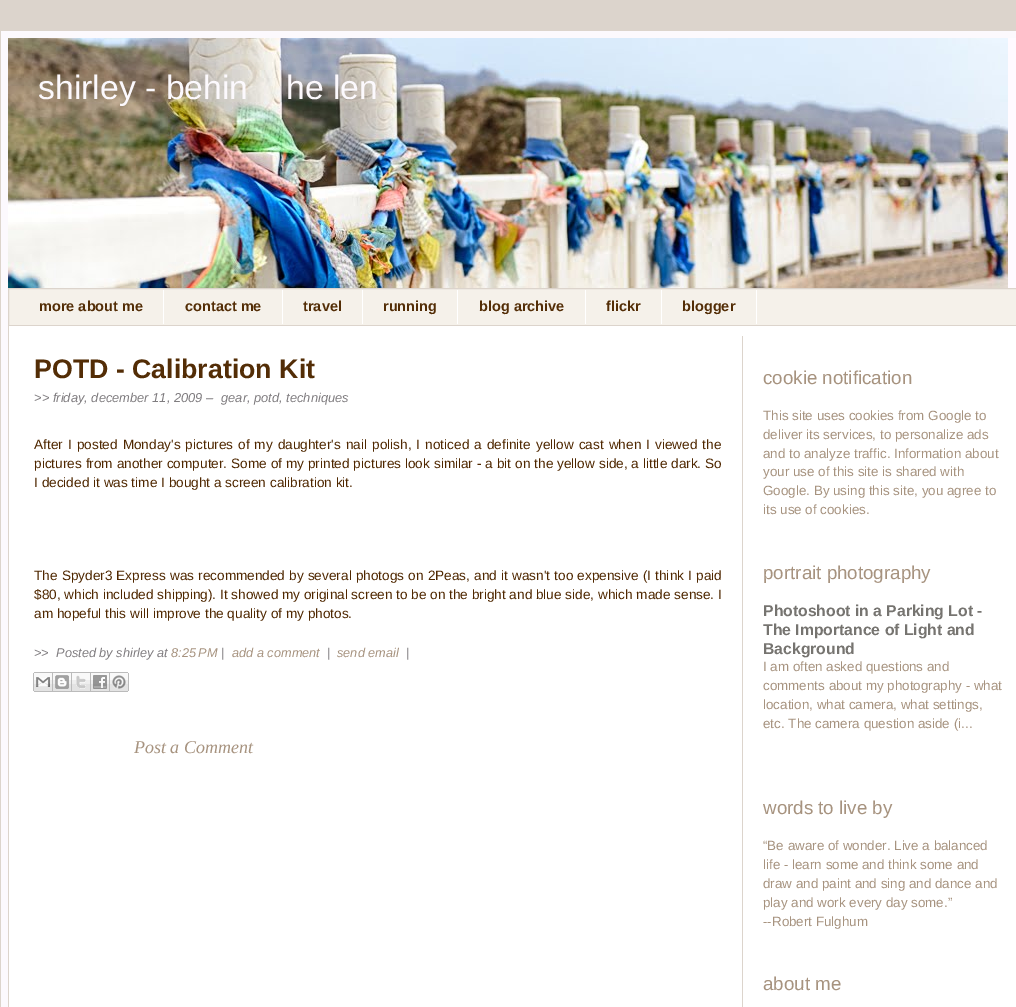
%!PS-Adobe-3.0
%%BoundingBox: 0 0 1016 1007
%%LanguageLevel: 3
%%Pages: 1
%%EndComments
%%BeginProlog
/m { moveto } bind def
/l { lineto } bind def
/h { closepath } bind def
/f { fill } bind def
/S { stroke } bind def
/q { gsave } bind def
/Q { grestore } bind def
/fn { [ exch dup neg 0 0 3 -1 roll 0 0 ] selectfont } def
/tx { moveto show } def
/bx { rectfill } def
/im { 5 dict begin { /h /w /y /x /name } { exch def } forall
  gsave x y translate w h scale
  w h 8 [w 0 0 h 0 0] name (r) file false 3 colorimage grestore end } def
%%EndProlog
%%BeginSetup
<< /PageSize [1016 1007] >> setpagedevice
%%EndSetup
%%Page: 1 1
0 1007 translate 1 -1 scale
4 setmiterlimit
0.863 0.831 0.8 setrgbcolor
0 0 1016 1007 bx
0.988 0.976 0.992 setrgbcolor
1 31 1015 976 bx
1 0.98 1 setrgbcolor
1008 38 8 250 bx
(image0.raw) 8 38 1000 250 im
/LiberationSans-Regular 33.75 fn
0.988 0.976 0.992 setrgbcolor
(shirley - behin) 38 99 tx
(he len) 286 99 tx
0.961 0.945 0.918 setrgbcolor
8.5 288.5 m 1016.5 288.5 l 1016.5 325.5 l 8.5 325.5 l h q f Q
0.863 0.831 0.8 setrgbcolor
S
/LiberationSans-Bold 14.5 fn
0.325 0.176 0.024 setrgbcolor
(more about me) 39 311 tx
1 setgray
163 290 1 34 bx
0.325 0.176 0.024 setrgbcolor
(contact me) 185 311 tx
1 setgray
282 290 1 34 bx
0.325 0.176 0.024 setrgbcolor
(travel) 303 311 tx
1 setgray
362 290 1 34 bx
0.325 0.176 0.024 setrgbcolor
(running) 383 311 tx
1 setgray
457 290 1 34 bx
0.325 0.176 0.024 setrgbcolor
(blog archive) 479 311 tx
1 setgray
585 290 1 34 bx
0.325 0.176 0.024 setrgbcolor
(flickr) 606 311 tx
1 setgray
661 290 1 34 bx
0.325 0.176 0.024 setrgbcolor
(blogger) 682 311 tx
1 setgray
756 290 1 34 bx
9 326 1007 681 bx
0.863 0.831 0.8 setrgbcolor
8 326 1 681 bx
742 336 1 671 bx
/LiberationSans-Bold 26.75 fn
0.325 0.176 0.024 setrgbcolor
(POTD - Calibration Kit) 34 378 tx
/LiberationSans-Italic 12.9 fn
0.502 0.49 0.502 setrgbcolor
(>> friday, december 11, 2009 –) 34 402 tx
(gear, potd, techniques) 221 402 tx
/LiberationSans-Regular 13.6 fn
0.31 0.153 0 setrgbcolor
34 449 m 1.3 0 32 (After I posted Monday's pictures of my daughter's nail polish, I noticed a definite yellow cast when I viewed the) widthshow
34 468 m 0.15 0 32 (pictures from another computer. Some of my printed pictures look similar - a bit on the yellow side, a little dark. So) widthshow
(I decided it was time I bought a screen calibration kit.) 34 487 tx
34 580 m 0.4 0 32 (The Spyder3 Express was recommended by several photogs on 2Peas, and it wasn't too expensive \(I think I paid) widthshow
($80, which included shipping\). It showed my original screen to be on the bright and blue side, which made sense. I) 34 599 tx
(am hopeful this will improve the quality of my photos.) 34 618 tx
/LiberationSans-Italic 12.75 fn
0.502 0.49 0.502 setrgbcolor
(>>) 34 657 tx
(Posted by shirley at) 56 657 tx
0.655 0.576 0.498 setrgbcolor
(8:25 PM) 171 657 tx
0.502 0.49 0.502 setrgbcolor
(|) 221 657 tx
0.655 0.576 0.498 setrgbcolor
(add a comment) 232 657 tx
0.502 0.49 0.502 setrgbcolor
(|) 327 657 tx
0.655 0.576 0.498 setrgbcolor
(send email) 337 657 tx
0.502 0.49 0.502 setrgbcolor
(|) 406 657 tx
(image1.raw) 33 672 20 20 im
(image2.raw) 53 672 19 20 im
(image3.raw) 72 672 19 20 im
(image4.raw) 91 672 19 20 im
(image5.raw) 110 672 19 20 im
/LiberationSerif-Italic 18 fn
0.655 0.576 0.498 setrgbcolor
(Post a Comment) 134 753 tx
/LiberationSans-Regular 18.75 fn
(cookie notification) 763 384 tx
/LiberationSans-Regular 13.4 fn
(This site uses cookies from Google to) 763 420 tx
(deliver its services, to personalize ads) 763 439 tx
(and to analyze traffic. Information about) 763 458 tx
(your use of this site is shared with) 763 476 tx
(Google. By using this site, you agree to) 763 495 tx
(its use of cookies.) 763 514 tx
/LiberationSans-Regular 18.75 fn
(portrait photography) 763 579 tx
/LiberationSans-Bold 15.75 fn
0.463 0.455 0.439 setrgbcolor
(Photoshoot in a Parking Lot -) 763 616 tx
(The Importance of Light and) 763 635 tx
(Background) 763 654 tx
/LiberationSans-Regular 13.4 fn
0.655 0.576 0.498 setrgbcolor
(I am often asked questions and) 763 671 tx
(comments about my photography - what) 763 690 tx
(location, what camera, what settings,) 763 709 tx
(etc. The camera question aside \(i...) 763 728 tx
/LiberationSans-Regular 18.75 fn
(words to live by) 763 814 tx
/LiberationSans-Regular 13.4 fn
(“Be aware of wonder. Live a balanced) 763 850 tx
(life - learn some and think some and) 763 869 tx
(draw and paint and sing and dance and) 763 888 tx
(play and work every day some.”) 763 907 tx
(--Robert Fulghum) 763 926 tx
/LiberationSans-Regular 18.75 fn
(about me) 763 990 tx
showpage
%%EOF
